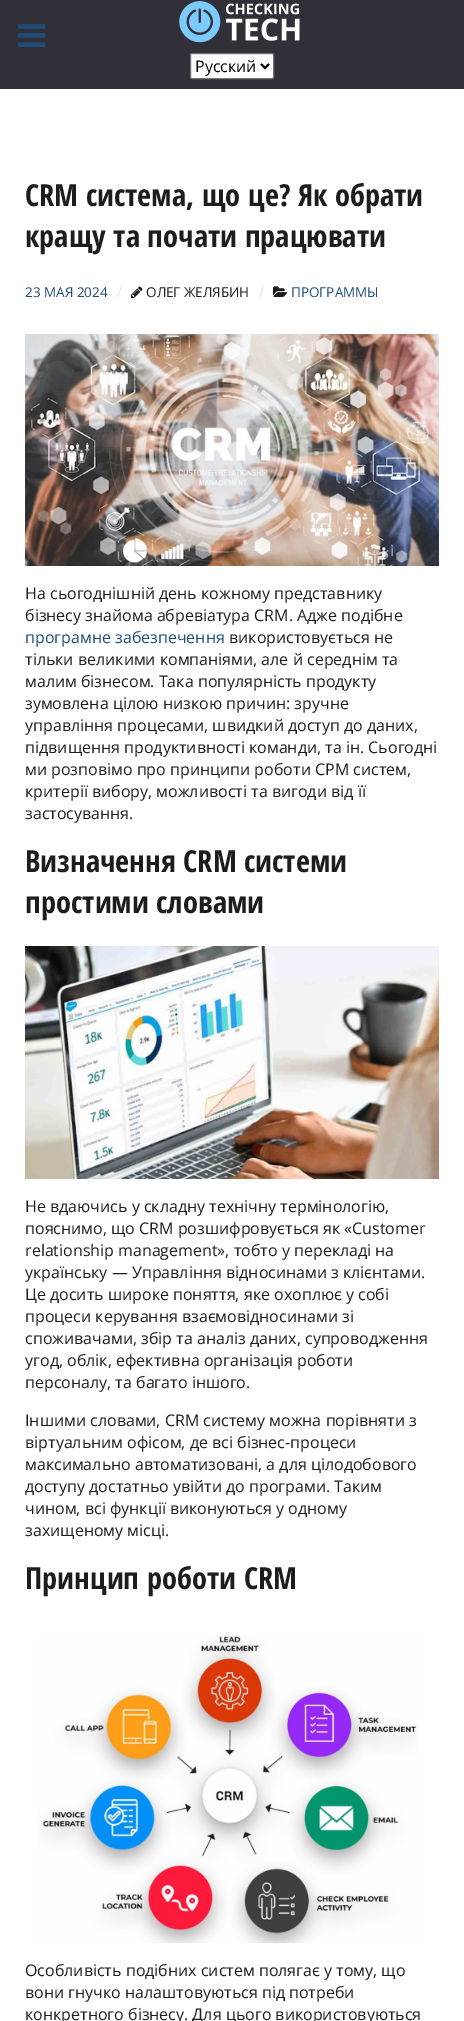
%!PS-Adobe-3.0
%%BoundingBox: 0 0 464 2021
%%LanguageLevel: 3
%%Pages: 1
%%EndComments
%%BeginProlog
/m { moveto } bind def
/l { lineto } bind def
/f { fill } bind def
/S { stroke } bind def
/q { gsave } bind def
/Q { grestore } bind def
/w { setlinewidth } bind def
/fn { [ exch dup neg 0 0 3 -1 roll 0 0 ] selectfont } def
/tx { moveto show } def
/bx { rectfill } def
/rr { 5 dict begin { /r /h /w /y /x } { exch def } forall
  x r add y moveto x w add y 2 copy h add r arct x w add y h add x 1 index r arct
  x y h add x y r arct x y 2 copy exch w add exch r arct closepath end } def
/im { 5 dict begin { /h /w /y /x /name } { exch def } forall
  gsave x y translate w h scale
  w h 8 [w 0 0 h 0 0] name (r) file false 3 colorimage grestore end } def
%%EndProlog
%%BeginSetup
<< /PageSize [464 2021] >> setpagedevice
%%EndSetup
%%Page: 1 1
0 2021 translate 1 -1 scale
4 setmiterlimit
1 setgray
0 0 464 2021 bx
0.192 0.184 0.22 setrgbcolor
0 0 464 89 bx
(image0.raw) 18 24 28 23 im
(image1.raw) 179 1 121 42 im
1 setgray
190.5 53.5 83 25 1.5 rr q f Q
0.463 setgray
S
0 setgray
2 w
261 64 m 265 68 l 269 64 l S
/OpenSans-Regular 16 fn
(Русский) 195 72 tx
/OpenSansCondensed-Bold 30.4 fn
0.114 0.114 0.122 setrgbcolor
(CRM система, що це? Як обрати) 25 206 tx
(кращу та почати працювати) 25 247 tx
/OpenSans-Regular 13.5 fn
0.118 0.302 0.471 setrgbcolor
(23 МАЯ 2024) 25 297 tx
0.878 0.878 0.898 setrgbcolor
(/) 117 297 tx
(image2.raw) 131 286 12 12 im
0.114 0.114 0.122 setrgbcolor
(ОЛЕГ ЖЕЛЯБИН) 146 297 tx
0.878 0.878 0.898 setrgbcolor
(/) 259 297 tx
(image3.raw) 273 286 15 11 im
0.118 0.302 0.471 setrgbcolor
(ПРОГРАММЫ) 291 297 tx
(image4.raw) 25 334 414 232 im
/OpenSans-Regular 16 fn
0.114 0.114 0.122 setrgbcolor
(На сьогоднішній день кожному представнику) 25 599 tx
(бізнесу знайома абревіатура CRM. Адже подібне) 25 621 tx
0.118 0.302 0.471 setrgbcolor
(програмне забезпечення) 25 643 tx
0.114 0.114 0.122 setrgbcolor
(використовується не) 229 643 tx
(тільки великими компаніями, але й середнім та) 25 665 tx
(малим бізнесом. Така популярність продукту) 25 687 tx
(зумовлена цілою низкою причин: зручне) 25 709 tx
(управління процесами, швидкий доступ до даних,) 25 731 tx
(підвищення продуктивності команди, та ін. Сьогодні) 25 753 tx
(ми розповімо про принципи роботи СРМ систем,) 25 775 tx
(критерії вибору, можливості та вигоди від її) 25 797 tx
(застосування.) 25 819 tx
/OpenSansCondensed-Bold 30.4 fn
(Визначення CRM системи) 25 872 tx
(простими словами) 25 913 tx
(image5.raw) 25 946 414 233 im
/OpenSans-Regular 16 fn
(Не вдаючись у складну технічну термінологію,) 25 1212 tx
(пояснимо, що CRM розшифровується як «Customer) 25 1234 tx
(relationship management», тобто у перекладі на) 25 1256 tx
(українську — Управління відносинами з клієнтами.) 25 1278 tx
(Це досить широке поняття, яке охоплює у собі) 25 1300 tx
(процеси керування взаємовідносинами зі) 25 1322 tx
(споживачами, збір та аналіз даних, супроводження) 25 1344 tx
(угод, облік, ефективна організація роботи) 25 1366 tx
(персоналу, та багато іншого.) 25 1388 tx
(Іншими словами, CRM систему можна порівняти з) 25 1426 tx
(віртуальним офісом, де всі бізнес-процеси) 25 1448 tx
(максимально автоматизовані, а для цілодобового) 25 1470 tx
(доступу достатньо увійти до програми. Таким) 25 1492 tx
(чином, всі функції виконуються у одному) 25 1514 tx
(захищеному місці.) 25 1536 tx
/OpenSansCondensed-Bold 30.4 fn
(Принцип роботи CRM) 25 1589 tx
(image6.raw) 38 1634 381 309 im
/OpenSans-Regular 16 fn
(Особливість подібних систем полягає у тому, що) 25 1976 tx
(вони гнучко налаштовуються під потреби) 25 1998 tx
(конкретного бізнесу. Для цього використовуються) 25 2020 tx
showpage
%%EOF
